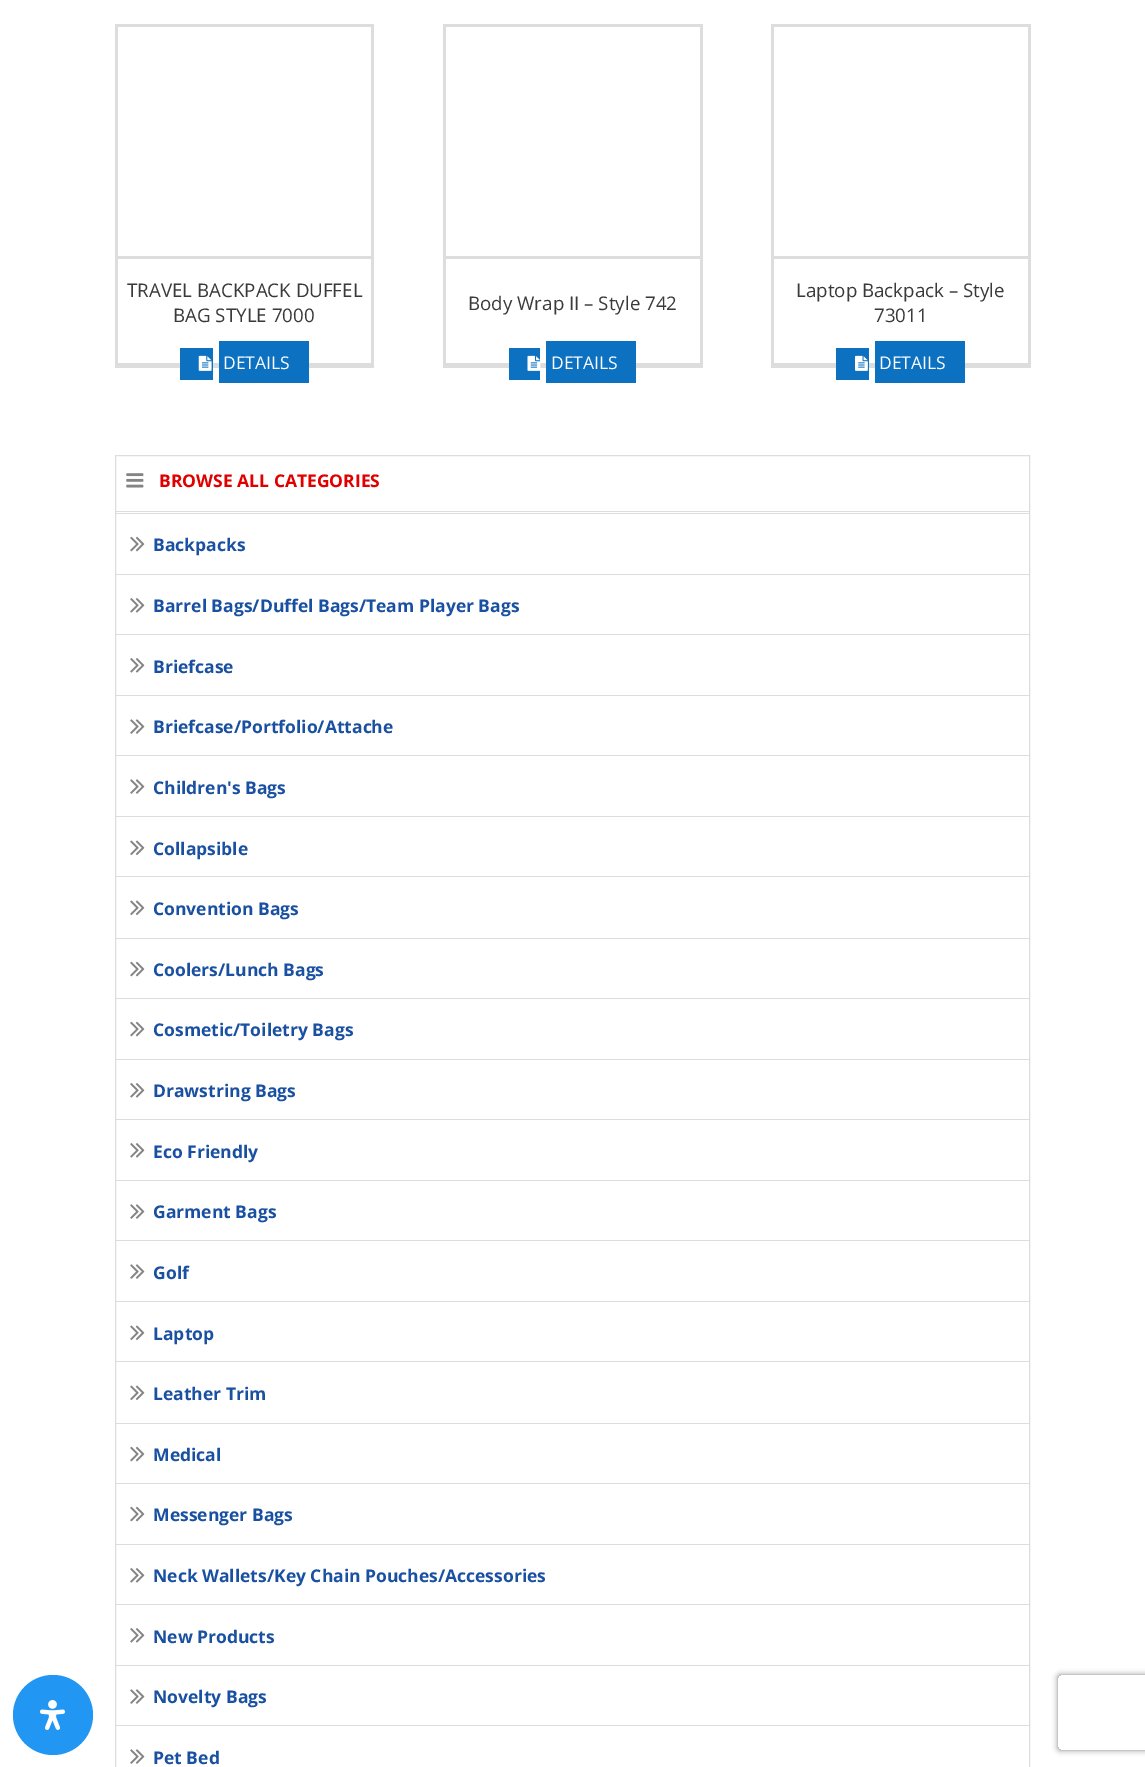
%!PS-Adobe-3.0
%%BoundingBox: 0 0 1145 1767
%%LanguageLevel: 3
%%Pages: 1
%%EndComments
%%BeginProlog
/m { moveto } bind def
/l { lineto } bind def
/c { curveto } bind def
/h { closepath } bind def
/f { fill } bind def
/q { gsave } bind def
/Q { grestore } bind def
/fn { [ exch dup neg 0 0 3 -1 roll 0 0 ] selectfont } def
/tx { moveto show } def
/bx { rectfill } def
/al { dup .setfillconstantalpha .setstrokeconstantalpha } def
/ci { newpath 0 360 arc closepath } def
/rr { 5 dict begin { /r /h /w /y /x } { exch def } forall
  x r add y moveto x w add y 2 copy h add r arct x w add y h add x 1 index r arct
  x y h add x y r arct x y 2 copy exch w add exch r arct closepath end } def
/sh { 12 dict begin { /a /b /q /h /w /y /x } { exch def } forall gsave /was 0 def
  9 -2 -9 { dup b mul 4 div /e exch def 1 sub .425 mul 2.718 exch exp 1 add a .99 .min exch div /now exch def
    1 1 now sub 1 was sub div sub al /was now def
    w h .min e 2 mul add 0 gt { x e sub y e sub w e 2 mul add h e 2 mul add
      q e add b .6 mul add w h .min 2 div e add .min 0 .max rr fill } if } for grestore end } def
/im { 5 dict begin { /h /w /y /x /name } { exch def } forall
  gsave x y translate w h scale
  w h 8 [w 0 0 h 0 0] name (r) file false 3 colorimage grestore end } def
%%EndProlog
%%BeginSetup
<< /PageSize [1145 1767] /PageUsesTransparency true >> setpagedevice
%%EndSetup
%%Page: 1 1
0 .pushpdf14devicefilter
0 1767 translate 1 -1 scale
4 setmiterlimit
1 setgray
0 0 1145 1767 bx
0.129 0.588 0.953 setrgbcolor
53 1715 40 ci f
(image0.raw) 39 1700 27 30 im
0.867 setgray
115 24 259 3 bx
371 24 3 344 bx
115 363 259 5 bx
115 24 3 344 bx
118 256 253 3 bx
/OpenSans-Regular 18.75 fn
0.227 setgray
(TRAVEL BACKPACK DUFFEL) 127 297 tx
(BAG STYLE 7000) 173 322 tx
0.047 0.443 0.757 setrgbcolor
180 348 33 32 bx
219 341 90 42 bx
(image1.raw) 198 355 14 16 im
/OpenSans-Regular 17.5 fn
1 setgray
(DETAILS) 223 369 tx
0.867 setgray
443 24 260 3 bx
700 24 3 344 bx
443 363 260 5 bx
443 24 3 344 bx
445 256 255 3 bx
/OpenSans-Regular 18.75 fn
0.227 setgray
(Body Wrap II – Style 742) 468 310 tx
0.047 0.443 0.757 setrgbcolor
509 348 31 32 bx
546 341 90 42 bx
(image2.raw) 527 355 14 16 im
/OpenSans-Regular 17.5 fn
1 setgray
(DETAILS) 551 369 tx
0.867 setgray
771 24 259 3 bx
1028 24 3 344 bx
771 363 259 5 bx
771 24 3 344 bx
774 256 254 3 bx
/OpenSans-Regular 18.75 fn
0.227 setgray
(Laptop Backpack – Style) 796 297 tx
(73011) 874 322 tx
0.047 0.443 0.757 setrgbcolor
836 348 33 32 bx
875 341 90 42 bx
(image3.raw) 855 355 13 16 im
/OpenSans-Regular 17.5 fn
1 setgray
(DETAILS) 879 369 tx
0.867 setgray
115.5 455.5 914 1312 rectstroke
116 511 913 1 bx
(image4.raw) 126 473 18 15 im
/OpenSans-Bold 17.5 fn
0.878 0 0 setrgbcolor
(BROWSE ALL CATEGORIES) 159 487 tx
0.867 setgray
116 513 913 1 bx
116 574 913 1 bx
(image5.raw) 130 536 15 16 im
0.102 0.314 0.631 setrgbcolor
(Backpacks) 153 551 tx
0.867 setgray
116 634 913 1 bx
(image6.raw) 130 598 15 15 im
0.102 0.314 0.631 setrgbcolor
(Barrel Bags/Duffel Bags/Team Player Bags) 153 612 tx
0.867 setgray
116 695 913 1 bx
(image6.raw) 130 658 15 15 im
0.102 0.314 0.631 setrgbcolor
(Briefcase) 153 673 tx
0.867 setgray
116 755 913 1 bx
(image7.raw) 130 719 15 15 im
0.102 0.314 0.631 setrgbcolor
(Briefcase/Portfolio/Attache) 153 733 tx
0.867 setgray
116 816 913 1 bx
(image7.raw) 130 779 15 15 im
0.102 0.314 0.631 setrgbcolor
(Children's Bags) 153 794 tx
0.867 setgray
116 876 913 1 bx
(image8.raw) 130 840 15 16 im
0.102 0.314 0.631 setrgbcolor
(Collapsible) 153 855 tx
0.867 setgray
116 938 913 1 bx
(image8.raw) 130 900 15 16 im
0.102 0.314 0.631 setrgbcolor
(Convention Bags) 153 915 tx
0.867 setgray
116 998 913 1 bx
(image5.raw) 130 961 15 16 im
0.102 0.314 0.631 setrgbcolor
(Coolers/Lunch Bags) 153 976 tx
0.867 setgray
116 1059 913 1 bx
(image5.raw) 130 1021 15 16 im
0.102 0.314 0.631 setrgbcolor
(Cosmetic/Toiletry Bags) 153 1036 tx
0.867 setgray
116 1119 913 1 bx
(image6.raw) 130 1083 15 15 im
0.102 0.314 0.631 setrgbcolor
(Drawstring Bags) 153 1097 tx
0.867 setgray
116 1180 913 1 bx
(image6.raw) 130 1143 15 15 im
0.102 0.314 0.631 setrgbcolor
(Eco Friendly) 153 1158 tx
0.867 setgray
116 1240 913 1 bx
(image7.raw) 130 1204 15 15 im
0.102 0.314 0.631 setrgbcolor
(Garment Bags) 153 1218 tx
0.867 setgray
116 1301 913 1 bx
(image7.raw) 130 1264 15 15 im
0.102 0.314 0.631 setrgbcolor
(Golf) 153 1279 tx
0.867 setgray
116 1361 913 1 bx
(image8.raw) 130 1325 15 16 im
0.102 0.314 0.631 setrgbcolor
(Laptop) 153 1340 tx
0.867 setgray
116 1423 913 1 bx
(image8.raw) 130 1385 15 16 im
0.102 0.314 0.631 setrgbcolor
(Leather Trim) 153 1400 tx
0.867 setgray
116 1483 913 1 bx
(image5.raw) 130 1446 15 16 im
0.102 0.314 0.631 setrgbcolor
(Medical) 153 1461 tx
0.867 setgray
116 1544 913 1 bx
(image5.raw) 130 1506 15 16 im
0.102 0.314 0.631 setrgbcolor
(Messenger Bags) 153 1521 tx
0.867 setgray
116 1604 913 1 bx
(image6.raw) 130 1568 15 15 im
0.102 0.314 0.631 setrgbcolor
(Neck Wallets/Key Chain Pouches/Accessories) 153 1582 tx
0.867 setgray
116 1665 913 1 bx
(image6.raw) 130 1628 15 15 im
0.102 0.314 0.631 setrgbcolor
(New Products) 153 1643 tx
0.867 setgray
116 1725 913 1 bx
(image7.raw) 130 1689 15 15 im
0.102 0.314 0.631 setrgbcolor
(Novelty Bags) 153 1703 tx
(image7.raw) 130 1749 15 15 im
(Pet Bed) 153 1764 tx
q
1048 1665 m 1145 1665 l 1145 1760 l 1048 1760 l h 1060.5 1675 m 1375.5 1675 l 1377 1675 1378 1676 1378 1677.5 c 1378 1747.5 l 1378 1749 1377 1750 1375.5 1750 c 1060.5 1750 l 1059 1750 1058 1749 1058 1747.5 c 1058 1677.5 l 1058 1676 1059 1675 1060.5 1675 c h eoclip newpath
0.502 setgray
1058 1675 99 75 2.5 3 1 sh
Q
.poppdf14devicefilter showpage
%%EOF
